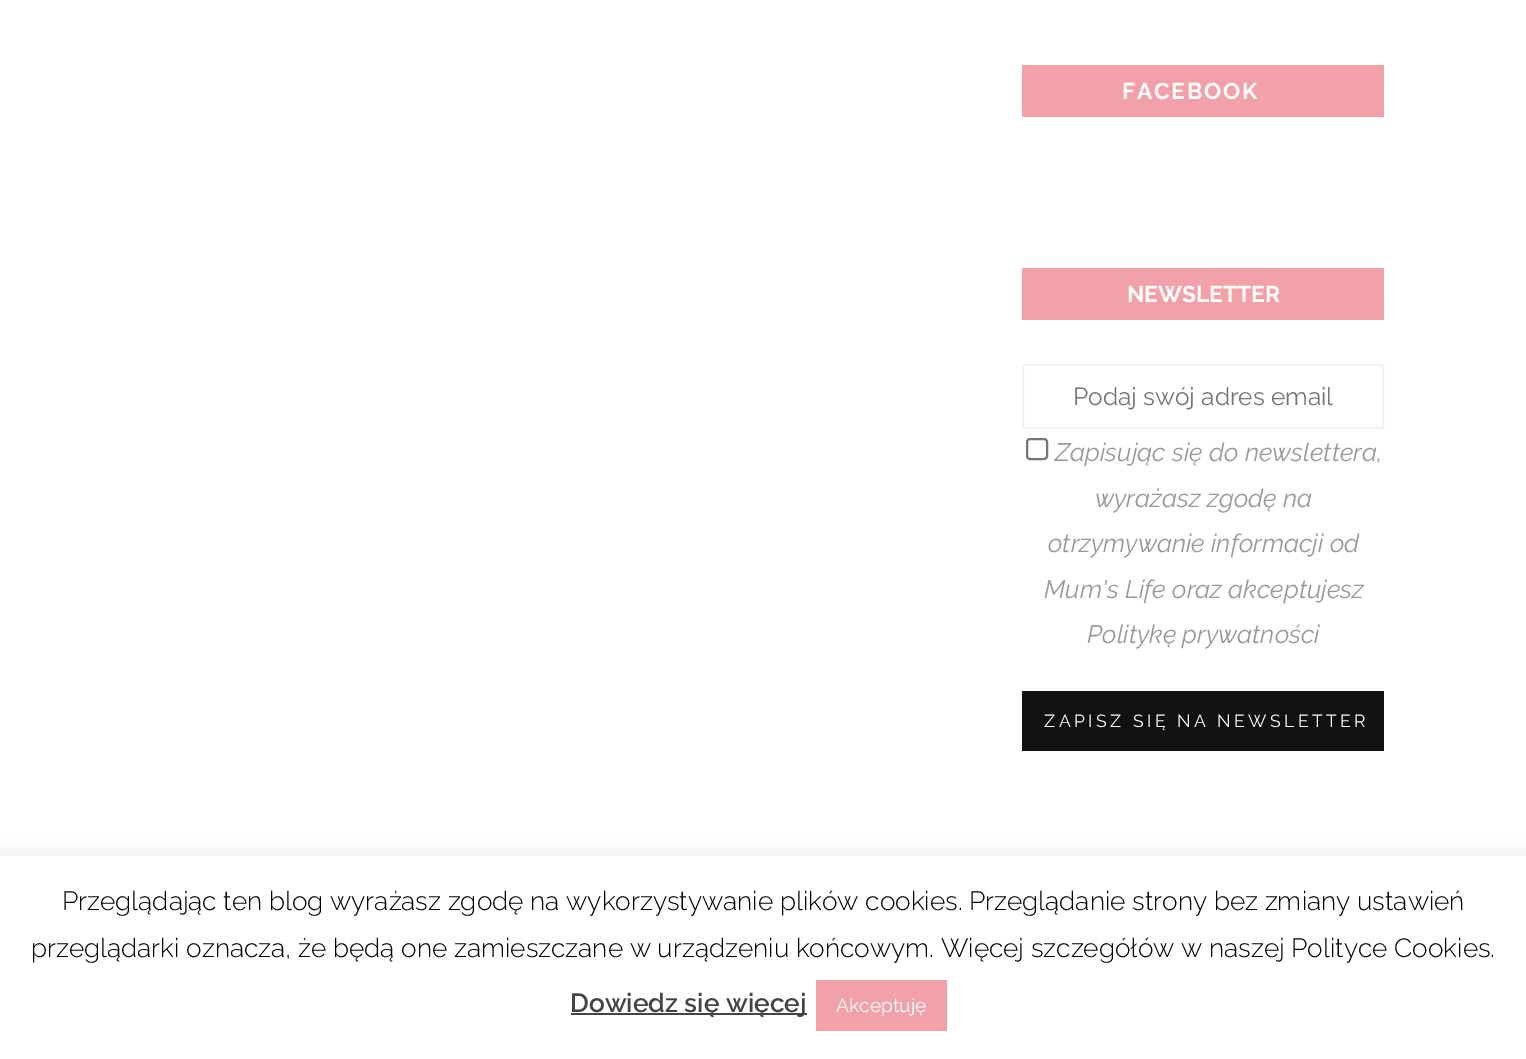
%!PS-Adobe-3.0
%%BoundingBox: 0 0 1526 1059
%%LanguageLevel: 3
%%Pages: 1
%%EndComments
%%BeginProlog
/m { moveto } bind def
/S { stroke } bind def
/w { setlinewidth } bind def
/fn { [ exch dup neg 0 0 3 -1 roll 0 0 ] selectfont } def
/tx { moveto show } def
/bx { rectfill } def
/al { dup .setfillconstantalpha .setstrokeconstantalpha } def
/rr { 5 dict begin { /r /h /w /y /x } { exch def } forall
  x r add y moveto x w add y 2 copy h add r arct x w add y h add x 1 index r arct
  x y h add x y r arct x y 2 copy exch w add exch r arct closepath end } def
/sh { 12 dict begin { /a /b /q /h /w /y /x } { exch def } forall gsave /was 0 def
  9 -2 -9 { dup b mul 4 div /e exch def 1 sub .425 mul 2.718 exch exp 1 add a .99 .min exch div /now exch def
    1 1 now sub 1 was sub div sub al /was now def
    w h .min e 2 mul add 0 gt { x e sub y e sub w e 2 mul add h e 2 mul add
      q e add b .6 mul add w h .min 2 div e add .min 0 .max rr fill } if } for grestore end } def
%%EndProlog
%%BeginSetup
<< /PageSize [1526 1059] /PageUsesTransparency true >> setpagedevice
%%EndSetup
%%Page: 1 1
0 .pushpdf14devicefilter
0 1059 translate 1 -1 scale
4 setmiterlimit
1 setgray
0 0 1526 1059 bx
0.945 0.631 0.655 setrgbcolor
1022 65 362 52 bx
/Raleway-Bold 22.75 fn
1 setgray
1122 99 m 1.75 0 (FACEBOOK) ashow
0.945 0.631 0.655 setrgbcolor
1022 268 362 52 bx
1 setgray
(NEWSLETTER) 1127 302 tx
0.949 setgray
2 w
1023 365 360 63 rectstroke
/Raleway-Regular 24.5 fn
0.459 setgray
(Podaj swój adres email) 1073 405 tx
0.463 setgray
1027 439 20 20 3 rr S
/Raleway-Italic 25.25 fn
0.6 setgray
(Zapisując się do newslettera,) 1055 461 tx
(wyrażasz zgodę na) 1095 507 tx
(otrzymywanie informacji od) 1048 552 tx
(Mum's Life oraz akceptujesz) 1044 598 tx
(Politykę prywatności) 1087 643 tx
0.067 setgray
1022 691 362 60 bx
/Raleway-Regular 17.5 fn
1 setgray
1044 727 m 3.5 0 (ZAPISZ SIĘ NA NEWSLETTER) ashow
0.675 0.671 0.671 setrgbcolor
0 854 1526 205 0 9 0.3 sh
1 setgray
0 856 1526 203 bx
/Raleway-Light 26.25 fn
0 setgray
(Przeglądając ten blog wyrażasz zgodę na wykorzystywanie plików cookies. Przeglądanie strony bez zmiany ustawień) 62 910 tx
(przeglądarki oznacza, że będą one zamieszczane w urządzeniu końcowym. Więcej szczegółów w naszej Polityce Cookies.) 31 957 tx
0.267 setgray
571 1013 236 2 bx
/Raleway-SemiBold 26.25 fn
(Dowiedz się więcej) 570 1012 tx
0.945 0.631 0.655 setrgbcolor
816 980 131 51 bx
/Raleway-Regular 19.25 fn
1 setgray
(Akceptuję) 836 1012 tx
.poppdf14devicefilter showpage
%%EOF
